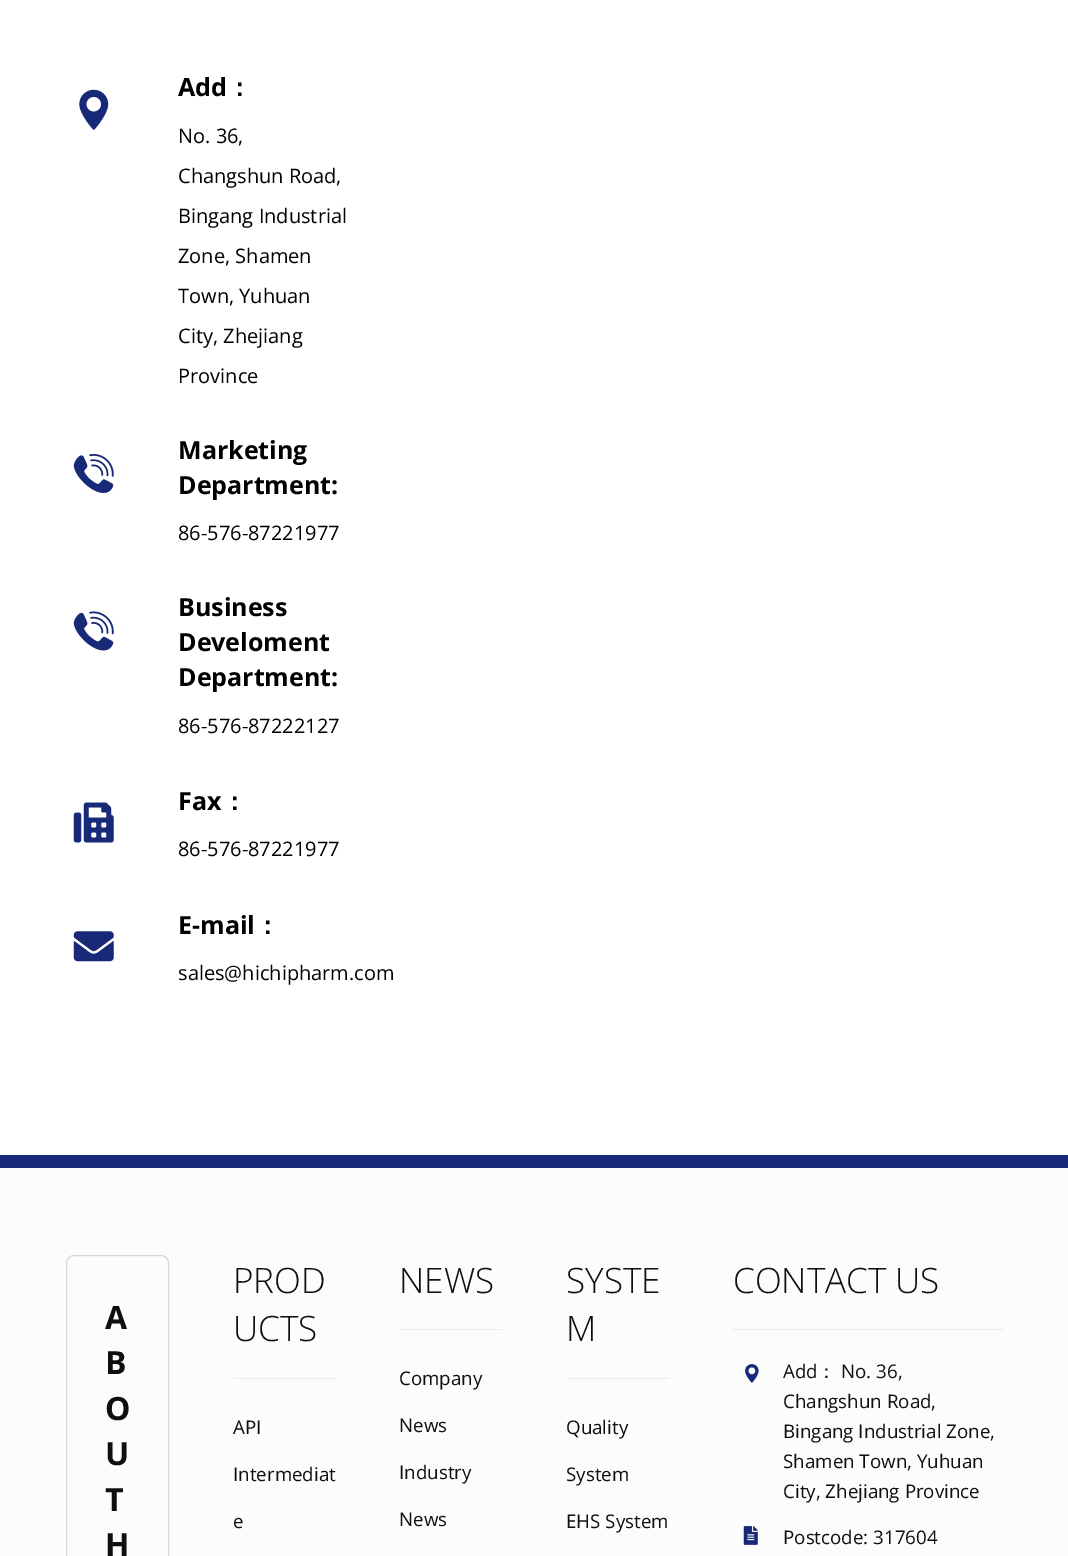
%!PS-Adobe-3.0
%%BoundingBox: 0 0 1068 1556
%%LanguageLevel: 3
%%Pages: 1
%%EndComments
%%BeginProlog
/S { stroke } bind def
/fn { [ exch dup neg 0 0 3 -1 roll 0 0 ] selectfont } def
/tx { moveto show } def
/bx { rectfill } def
/rr { 5 dict begin { /r /h /w /y /x } { exch def } forall
  x r add y moveto x w add y 2 copy h add r arct x w add y h add x 1 index r arct
  x y h add x y r arct x y 2 copy exch w add exch r arct closepath end } def
/im { 5 dict begin { /h /w /y /x /name } { exch def } forall
  gsave x y translate w h scale
  w h 8 [w 0 0 h 0 0] name (r) file false 3 colorimage grestore end } def
%%EndProlog
%%BeginSetup
<< /PageSize [1068 1556] >> setpagedevice
%%EndSetup
%%Page: 1 1
0 1556 translate 1 -1 scale
4 setmiterlimit
1 setgray
0 0 1068 1556 bx
(image0.raw) 79 89 30 41 im
/OpenSans-Bold 25 fn
0 setgray
(Add) 178 96 tx
/WenQuanYiZenHei-Bold 25 fn
(：) 227 96 tx
/OpenSans-Regular 20 fn
(No. 36,) 178 143 tx
(Changshun Road,) 178 183 tx
(Bingang Industrial) 178 223 tx
(Zone, Shamen) 178 263 tx
(Town, Yuhuan) 178 303 tx
(City, Zhejiang) 178 343 tx
(Province) 178 383 tx
(image1.raw) 73 454 41 39 im
/OpenSans-Bold 25 fn
(Marketing) 178 459 tx
(Department:) 178 494 tx
/OpenSans-Regular 20 fn
(86-576-87221977) 178 540 tx
(image2.raw) 73 611 41 40 im
/OpenSans-Bold 25 fn
(Business) 178 616 tx
(Develoment) 178 651 tx
(Department:) 178 686 tx
/OpenSans-Regular 20 fn
(86-576-87222127) 178 733 tx
(image3.raw) 73 802 41 41 im
/OpenSans-Bold 25 fn
(Fax) 178 810 tx
/WenQuanYiZenHei-Bold 25 fn
(：) 222 810 tx
/OpenSans-Regular 20 fn
(86-576-87221977) 178 856 tx
(image4.raw) 73 931 41 31 im
/OpenSans-Bold 25 fn
(E-mail) 178 934 tx
/WenQuanYiZenHei-Bold 25 fn
(：) 255 934 tx
/OpenSans-Regular 20 fn
(sales@hichipharm.com) 178 980 tx
0.988 setgray
0 1168 1068 388 bx
0.094 0.161 0.467 setrgbcolor
0 1155 1068 13 bx
0.847 setgray
66.5 1255.5 102 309 7.5 rr S
/OpenSans-Bold 32 fn
0.059 setgray
(A) 105 1329 tx
(B) 105 1374 tx
(O) 105 1420 tx
(U) 105 1465 tx
(T) 105 1511 tx
(H) 105 1556 tx
0.922 setgray
233 1378 103 1 bx
/OpenSans-Light 35 fn
0.059 setgray
(PROD) 233 1293 tx
(UCTS) 233 1341 tx
/OpenSans-Regular 18.75 fn
(API) 233 1434 tx
(Intermediat) 233 1481 tx
(e) 233 1528 tx
0.922 setgray
399 1329 104 1 bx
/OpenSans-Light 35 fn
0.059 setgray
(NEWS) 399 1293 tx
/OpenSans-Regular 18.75 fn
(Company) 399 1385 tx
(News) 399 1432 tx
(Industry) 399 1479 tx
(News) 399 1526 tx
0.922 setgray
566 1378 103 1 bx
/OpenSans-Light 35 fn
0.059 setgray
(SYSTE) 566 1293 tx
(M) 566 1341 tx
/OpenSans-Regular 18.75 fn
(Quality) 566 1434 tx
(System) 566 1481 tx
(EHS System) 566 1528 tx
0.922 setgray
733 1329 270 1 bx
/OpenSans-Light 35 fn
0.059 setgray
(CONTACT US) 733 1293 tx
(image5.raw) 745 1364 14 19 im
/OpenSans-Regular 18.75 fn
(Add) 783 1378 tx
/WenQuanYiZenHei-Medium 18.75 fn
(：) 817 1378 tx
/OpenSans-Regular 18.75 fn
(No. 36,) 841 1378 tx
(Changshun Road,) 783 1408 tx
(Bingang Industrial Zone,) 783 1438 tx
(Shamen Town, Yuhuan) 783 1468 tx
(City, Zhejiang Province) 783 1498 tx
(image6.raw) 743 1526 15 19 im
(Postcode: 317604) 783 1544 tx
showpage
%%EOF
